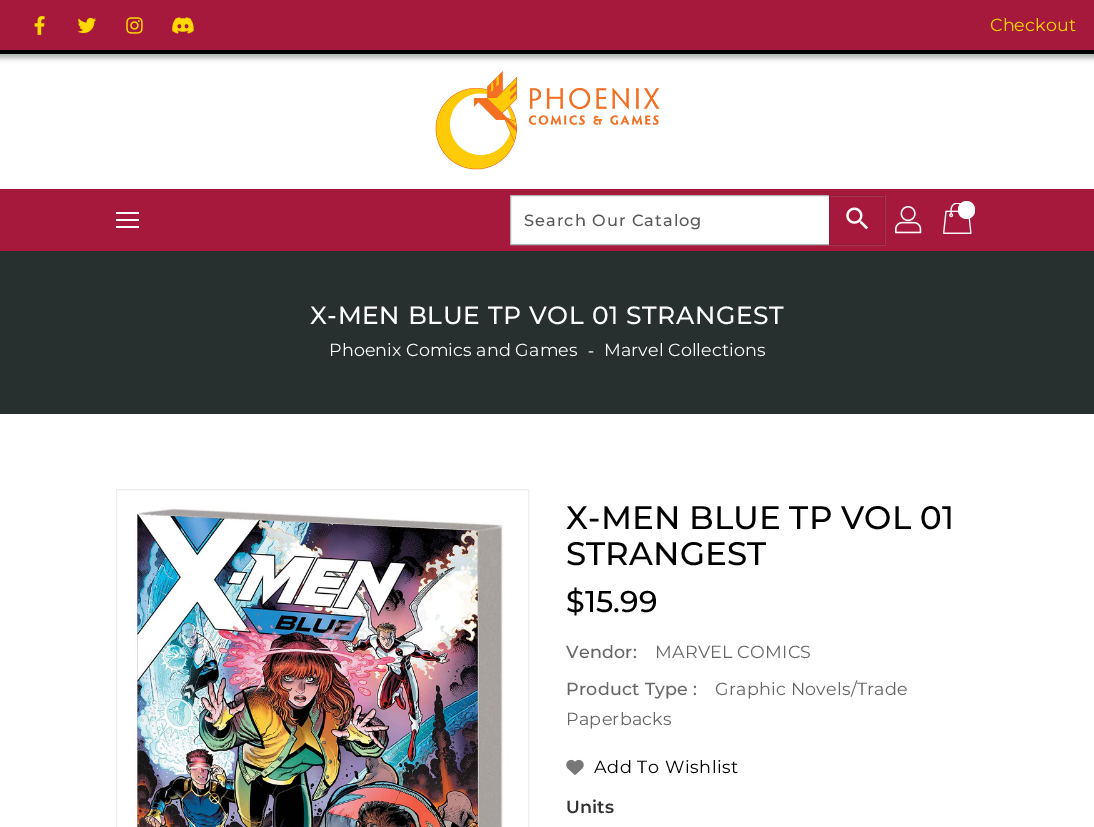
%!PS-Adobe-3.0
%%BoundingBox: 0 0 1094 827
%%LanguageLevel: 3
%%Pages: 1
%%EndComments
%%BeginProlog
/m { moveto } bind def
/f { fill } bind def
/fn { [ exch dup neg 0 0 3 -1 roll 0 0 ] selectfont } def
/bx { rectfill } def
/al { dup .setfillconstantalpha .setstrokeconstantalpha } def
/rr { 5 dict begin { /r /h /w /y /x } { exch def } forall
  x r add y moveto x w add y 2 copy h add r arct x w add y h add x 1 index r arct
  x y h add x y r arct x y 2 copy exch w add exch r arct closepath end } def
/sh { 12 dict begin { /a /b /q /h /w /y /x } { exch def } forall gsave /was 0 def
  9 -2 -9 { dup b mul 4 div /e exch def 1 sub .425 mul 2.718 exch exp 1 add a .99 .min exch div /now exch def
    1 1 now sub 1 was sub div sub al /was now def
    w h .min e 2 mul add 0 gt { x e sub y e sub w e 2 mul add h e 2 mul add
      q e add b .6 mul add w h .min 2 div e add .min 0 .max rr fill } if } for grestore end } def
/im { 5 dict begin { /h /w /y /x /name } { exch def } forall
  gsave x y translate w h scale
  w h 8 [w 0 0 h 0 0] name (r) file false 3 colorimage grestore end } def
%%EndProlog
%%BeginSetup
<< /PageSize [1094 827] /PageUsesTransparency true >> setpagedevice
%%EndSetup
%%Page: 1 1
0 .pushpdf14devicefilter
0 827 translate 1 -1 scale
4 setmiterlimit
1 setgray
0 0 1094 827 bx
0 setgray
-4 -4 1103 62 0 2.5 0.3 sh
0.651 0.098 0.235 setrgbcolor
0 0 1094 50 bx
0 setgray
0 50 1094 4 bx
(image0.raw) 34 16 11 19 im
(image1.raw) 77 17 20 17 im
(image2.raw) 126 17 17 17 im
(image3.raw) 172 17 22 17 im
/Montserrat-Regular 17.5 fn
1 0.847 0 setrgbcolor
990 31 m 0.1 0 (Checkout) ashow
(image4.raw) 435 71 225 99 im
0.651 0.098 0.235 setrgbcolor
0 189 1094 62 bx
1 setgray
116 212 23 2 bx
116 219 23 2 bx
116 226 23 2 bx
511 196 318 48 bx
0.702 setgray
510.5 195.5 374 49 rectstroke
/Montserrat-Medium 16.25 fn
0.349 setgray
524 226 m 1 0 (Search Our Catalog) ashow
0.584 0.09 0.212 setrgbcolor
829.5 195.5 55 49 rectstroke
(image5.raw) 846 207 22 23 im
(image6.raw) 895 206 27 28 im
(image7.raw) 943 203 29 31 im
1 setgray
958 201 17 18 8.5 rr f
0.153 0.188 0.184 setrgbcolor
0 251 1094 163 bx
/Montserrat-Medium 25 fn
1 setgray
310 324 m 0.6 0 (X-MEN BLUE TP VOL 01 STRANGEST) ashow
/Montserrat-Regular 17.5 fn
329 356 m 0.1 0 (Phoenix Comics and Games) ashow
/LiberationSerif-Regular 17.5 fn
588 356 m 0.1 0 (‐) ashow
/Montserrat-Regular 17.5 fn
604 356 m 0.1 0 (Marvel Collections) ashow
0.933 setgray
116.5 489.5 412 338 rectstroke
(image8.raw) 135 508 368 319 im
/Montserrat-Medium 32.5 fn
0 setgray
566 529 m 0.1 0 (X-MEN BLUE TP VOL 01) ashow
566 565 m 0.1 0 (STRANGEST) ashow
/Montserrat-Medium 30 fn
566 612 m 0.1 0 ($15.99) ashow
/Montserrat-Medium 17.5 fn
0.4 setgray
566 658 m 0.25 0 (Vendor:) ashow
/Montserrat-Regular 17.5 fn
655 658 m 0.25 0 (MARVEL COMICS) ashow
/Montserrat-Medium 17.5 fn
566 695 m 0.25 0 (Product Type :) ashow
/Montserrat-Regular 17.5 fn
715 695 m 0.25 0 (Graphic Novels/Trade) ashow
566 725 m 0.25 0 (Paperbacks) ashow
(image9.raw) 566 759 18 16 im
0 setgray
594 773 m 0.6 0 (Add To Wishlist) ashow
/Montserrat-SemiBold 17.5 fn
0.2 setgray
566 813 m 0.1 0 (Units) ashow
.poppdf14devicefilter showpage
%%EOF
